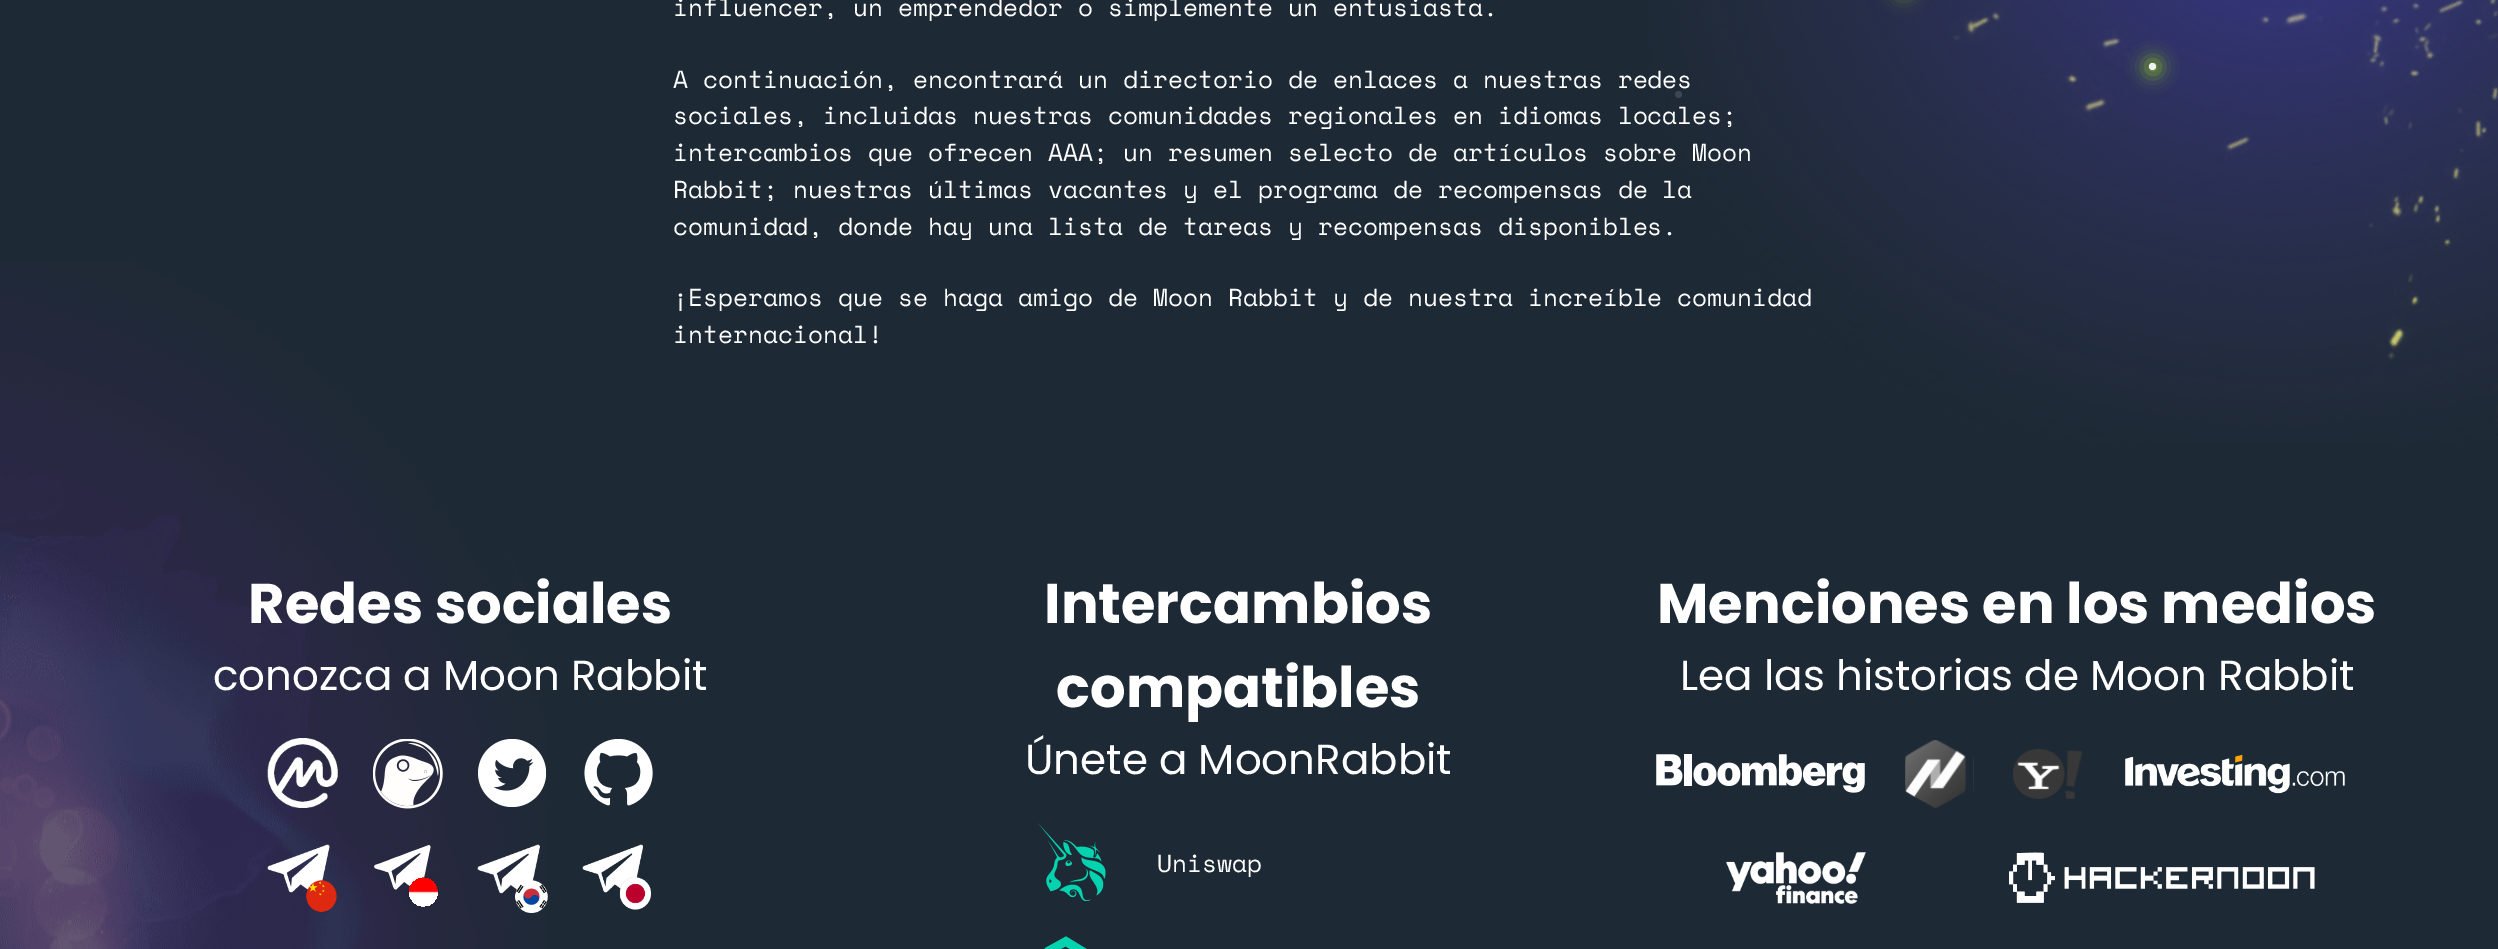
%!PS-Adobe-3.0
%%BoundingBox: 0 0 2498 949
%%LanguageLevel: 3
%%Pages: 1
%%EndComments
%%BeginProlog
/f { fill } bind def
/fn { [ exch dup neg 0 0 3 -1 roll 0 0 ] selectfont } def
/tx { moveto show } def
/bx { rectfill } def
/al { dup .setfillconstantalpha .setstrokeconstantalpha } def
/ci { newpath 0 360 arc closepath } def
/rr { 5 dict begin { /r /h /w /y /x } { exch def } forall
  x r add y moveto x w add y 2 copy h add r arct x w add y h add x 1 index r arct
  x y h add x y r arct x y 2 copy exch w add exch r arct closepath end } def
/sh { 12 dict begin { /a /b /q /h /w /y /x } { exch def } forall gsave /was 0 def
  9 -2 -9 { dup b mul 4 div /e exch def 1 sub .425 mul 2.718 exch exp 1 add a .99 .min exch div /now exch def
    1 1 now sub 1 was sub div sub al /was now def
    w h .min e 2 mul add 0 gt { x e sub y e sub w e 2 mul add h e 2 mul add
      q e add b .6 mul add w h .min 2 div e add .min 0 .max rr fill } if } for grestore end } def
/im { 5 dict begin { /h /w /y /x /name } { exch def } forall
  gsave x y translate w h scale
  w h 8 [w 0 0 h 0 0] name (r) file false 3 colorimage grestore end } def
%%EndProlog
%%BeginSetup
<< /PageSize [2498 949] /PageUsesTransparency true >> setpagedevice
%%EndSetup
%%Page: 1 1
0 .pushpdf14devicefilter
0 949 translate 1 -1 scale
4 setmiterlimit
0.114 0.161 0.204 setrgbcolor
0 0 2498 949 bx
/SpaceMono-Regular 24.5 fn
1 setgray
(influencer, un emprendedor o simplemente un entusiasta.) 673 16 tx
(image17.raw) 1649 0 849 442 im
(A continuación, encontrará un directorio de enlaces a nuestras redes) 673 88 tx
(sociales, incluidas nuestras comunidades regionales en idiomas locales;) 673 124 tx
(intercambios que ofrecen AAA; un resumen selecto de artículos sobre Moon) 673 161 tx
(Rabbit; nuestras últimas vacantes y el programa de recompensas de la) 673 198 tx
(comunidad, donde hay una lista de tareas y recompensas disponibles.) 673 235 tx
(¡Esperamos que se haga amigo de Moon Rabbit y de nuestra increíble comunidad) 673 306 tx
(internacional!) 673 343 tx
(image16.raw) 0 261 546 688 im
/Poppins-Bold 56 fn
(Redes sociales) 248 623 tx
/Poppins-Regular 42 fn
(conozca a Moon Rabbit) 213 690 tx
(image0.raw) 267 738 71 70 im
(image1.raw) 373 739 70 70 im
(image2.raw) 478 739 69 68 im
(image3.raw) 584 739 69 67 im
(image4.raw) 267 844 70 68 im
(image5.raw) 374 845 64 62 im
(image6.raw) 477 844 71 69 im
(image7.raw) 582 844 69 66 im
/Poppins-Bold 56 fn
(Intercambios) 1044 623 tx
(compatibles) 1056 707 tx
/Poppins-Regular 42 fn
(Únete a MoonRabbit) 1025 774 tx
(image8.raw) 1038 823 68 78 im
/SpaceMono-Regular 24.5 fn
(Uniswap) 1157 872 tx
(image9.raw) 1044 936 43 13 im
/Poppins-Bold 56 fn
(Menciones en los medios) 1657 623 tx
/Poppins-Regular 42 fn
(Lea las historias de Moon Rabbit) 1680 690 tx
(image10.raw) 1656 754 209 39 im
(image11.raw) 1905 740 69 68 im
(image12.raw) 2013 749 69 50 im
(image13.raw) 2125 754 220 40 im
(image14.raw) 1726 852 140 52 im
(image15.raw) 2009 852 306 51 im
0.722 1 0 setrgbcolor
1897 -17 14 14 7 9 0.34 sh
0.235 0.271 0.318 setrgbcolor
1678.5 94.5 3.5 ci f
0.722 1 0 setrgbcolor
2146 60 14 14 7 9 0.56 sh
0.949 0.953 0.965 setrgbcolor
2152.5 66.5 3.5 ci f
.poppdf14devicefilter showpage
%%EOF
